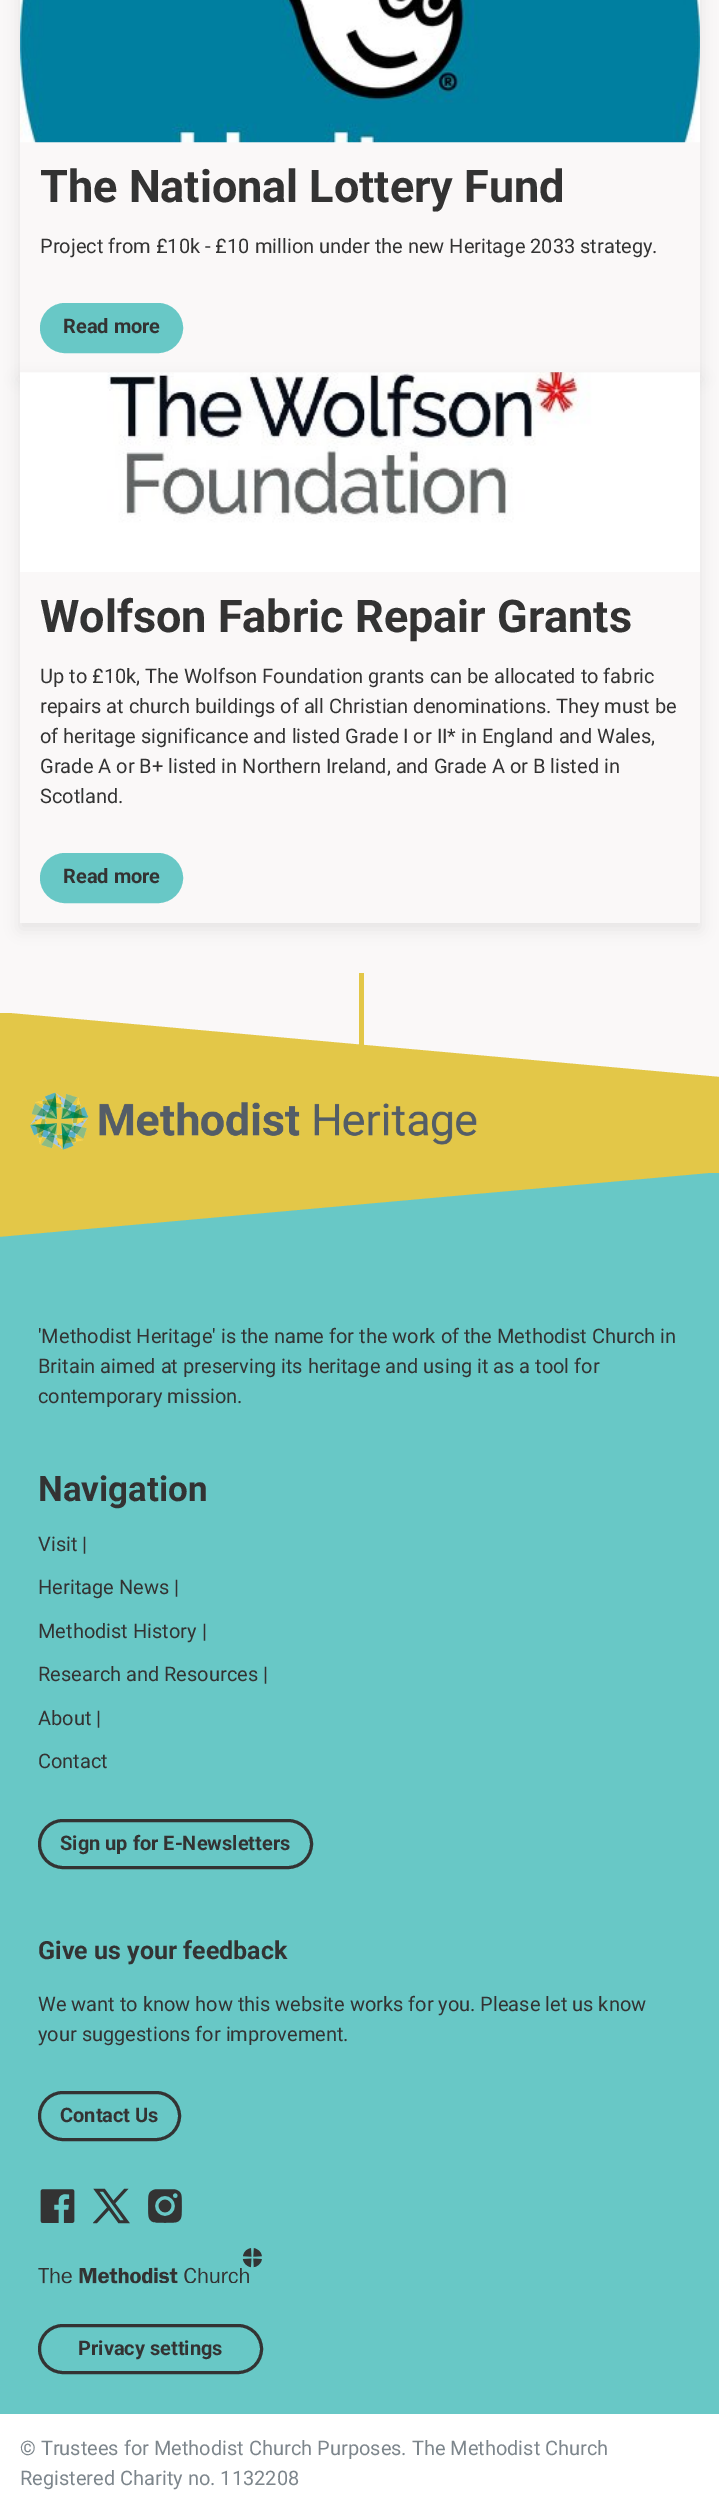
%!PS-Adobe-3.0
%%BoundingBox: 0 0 719 2506
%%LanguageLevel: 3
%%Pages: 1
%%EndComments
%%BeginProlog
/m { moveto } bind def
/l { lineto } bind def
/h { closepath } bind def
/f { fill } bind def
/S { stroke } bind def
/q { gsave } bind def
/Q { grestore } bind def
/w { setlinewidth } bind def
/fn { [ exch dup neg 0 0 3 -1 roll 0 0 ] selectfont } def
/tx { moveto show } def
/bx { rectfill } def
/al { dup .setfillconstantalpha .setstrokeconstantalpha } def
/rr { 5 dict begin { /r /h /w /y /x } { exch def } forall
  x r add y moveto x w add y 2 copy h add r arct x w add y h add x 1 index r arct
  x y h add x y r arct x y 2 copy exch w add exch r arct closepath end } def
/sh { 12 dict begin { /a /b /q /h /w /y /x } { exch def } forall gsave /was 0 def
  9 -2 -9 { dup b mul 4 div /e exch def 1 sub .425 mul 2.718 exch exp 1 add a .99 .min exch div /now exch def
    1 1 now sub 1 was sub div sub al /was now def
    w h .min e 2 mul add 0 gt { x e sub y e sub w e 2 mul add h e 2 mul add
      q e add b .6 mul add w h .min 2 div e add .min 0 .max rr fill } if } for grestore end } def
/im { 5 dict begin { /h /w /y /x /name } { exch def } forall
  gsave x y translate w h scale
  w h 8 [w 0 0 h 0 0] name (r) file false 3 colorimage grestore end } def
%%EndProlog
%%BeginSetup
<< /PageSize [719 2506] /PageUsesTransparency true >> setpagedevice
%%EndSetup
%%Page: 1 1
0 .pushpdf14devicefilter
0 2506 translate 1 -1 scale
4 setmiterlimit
0.98 0.973 0.973 setrgbcolor
0 0 719 2506 bx
q
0 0 m 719 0 l 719 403 l 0 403 l h 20 -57 m 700 -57 l 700 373 l 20 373 l h eoclip newpath
0.2 setgray
20 -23 680 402 0 7.5 0.1 sh
Q
(image0.raw) 20 0 680 143 im
/Roboto-Bold 45 fn
0.2 setgray
(The National Lottery Fund) 40 202 tx
/Roboto-Regular 20 fn
(Project from £10k - £10 million under the new Heritage 2033 strategy.) 40 253 tx
0.408 0.784 0.776 setrgbcolor
41.5 304.5 140 47 23.5 rr q f Q
3 w
S
/Roboto-Bold 20 fn
0.2 setgray
(Read more) 63 333 tx
q
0 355 m 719 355 l 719 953 l 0 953 l h 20 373 m 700 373 l 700 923 l 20 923 l h eoclip newpath
20 379 680 550 0 7.5 0.1 sh
Q
(image1.raw) 20 372 680 200 im
/Roboto-Bold 45 fn
(Wolfson Fabric Repair Grants) 40 632 tx
/Roboto-Regular 20 fn
(Up to £10k, The Wolfson Foundation grants can be allocated to fabric) 40 683 tx
(repairs at church buildings of all Christian denominations. They must be) 40 713 tx
(of heritage significance and listed Grade I or II* in England and Wales,) 40 743 tx
(Grade A or B+ listed in Northern Ireland, and Grade A or B listed in) 40 773 tx
(Scotland.) 40 803 tx
0.408 0.784 0.776 setrgbcolor
41.5 854.5 140 47 23.5 rr q f Q
S
/Roboto-Bold 20 fn
0.2 setgray
(Read more) 63 883 tx
0.89 0.78 0.282 setrgbcolor
359 973 5 72 bx
0 1013 m 0 1252 l 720 1252 l 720 1077 l 9 1013 l h f
(image2.raw) 30 1092 447 58 im
0.408 0.784 0.776 setrgbcolor
0 1237 m 0 2414 l 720 2414 l 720 1173 l 711 1173 l h f
/Roboto-Regular 20 fn
0.2 setgray
('Methodist Heritage' is the name for the work of the Methodist Church in) 38 1343 tx
(Britain aimed at preserving its heritage and using it as a tool for) 38 1373 tx
(contemporary mission.) 38 1403 tx
/Roboto-Bold 35 fn
(Navigation) 38 1501 tx
/Roboto-Regular 20 fn
(Visit |) 38 1551 tx
(Heritage News |) 38 1594 tx
(Methodist History |) 38 1638 tx
(Research and Resources |) 38 1681 tx
(About |) 38 1725 tx
(Contact) 38 1768 tx
39.5 1820.5 272 47 23.5 rr S
/Roboto-Bold 20 fn
(Sign up for E-Newsletters) 60 1850 tx
/Roboto-Bold 25 fn
(Give us your feedback) 38 1959 tx
/Roboto-Regular 20 fn
(We want to know how this website works for you. Please let us know) 38 2011 tx
(your suggestions for improvement.) 38 2041 tx
39.5 2092.5 140 47 23.5 rr S
/Roboto-Bold 20 fn
(Contact Us) 60 2122 tx
(image3.raw) 40 2189 35 34 im
(image4.raw) 93 2188 37 36 im
(image5.raw) 148 2189 34 34 im
(image6.raw) 38 2248 224 36 im
39.5 2325.5 222 47 23.5 rr S
(Privacy settings) 78 2355 tx
1 setgray
0 2414 719 92 bx
/Roboto-Regular 20 fn
0.49 0.525 0.549 setrgbcolor
(© Trustees for Methodist Church Purposes. The Methodist Church) 20 2455 tx
(Registered Charity no. 1132208) 20 2485 tx
.poppdf14devicefilter showpage
%%EOF
